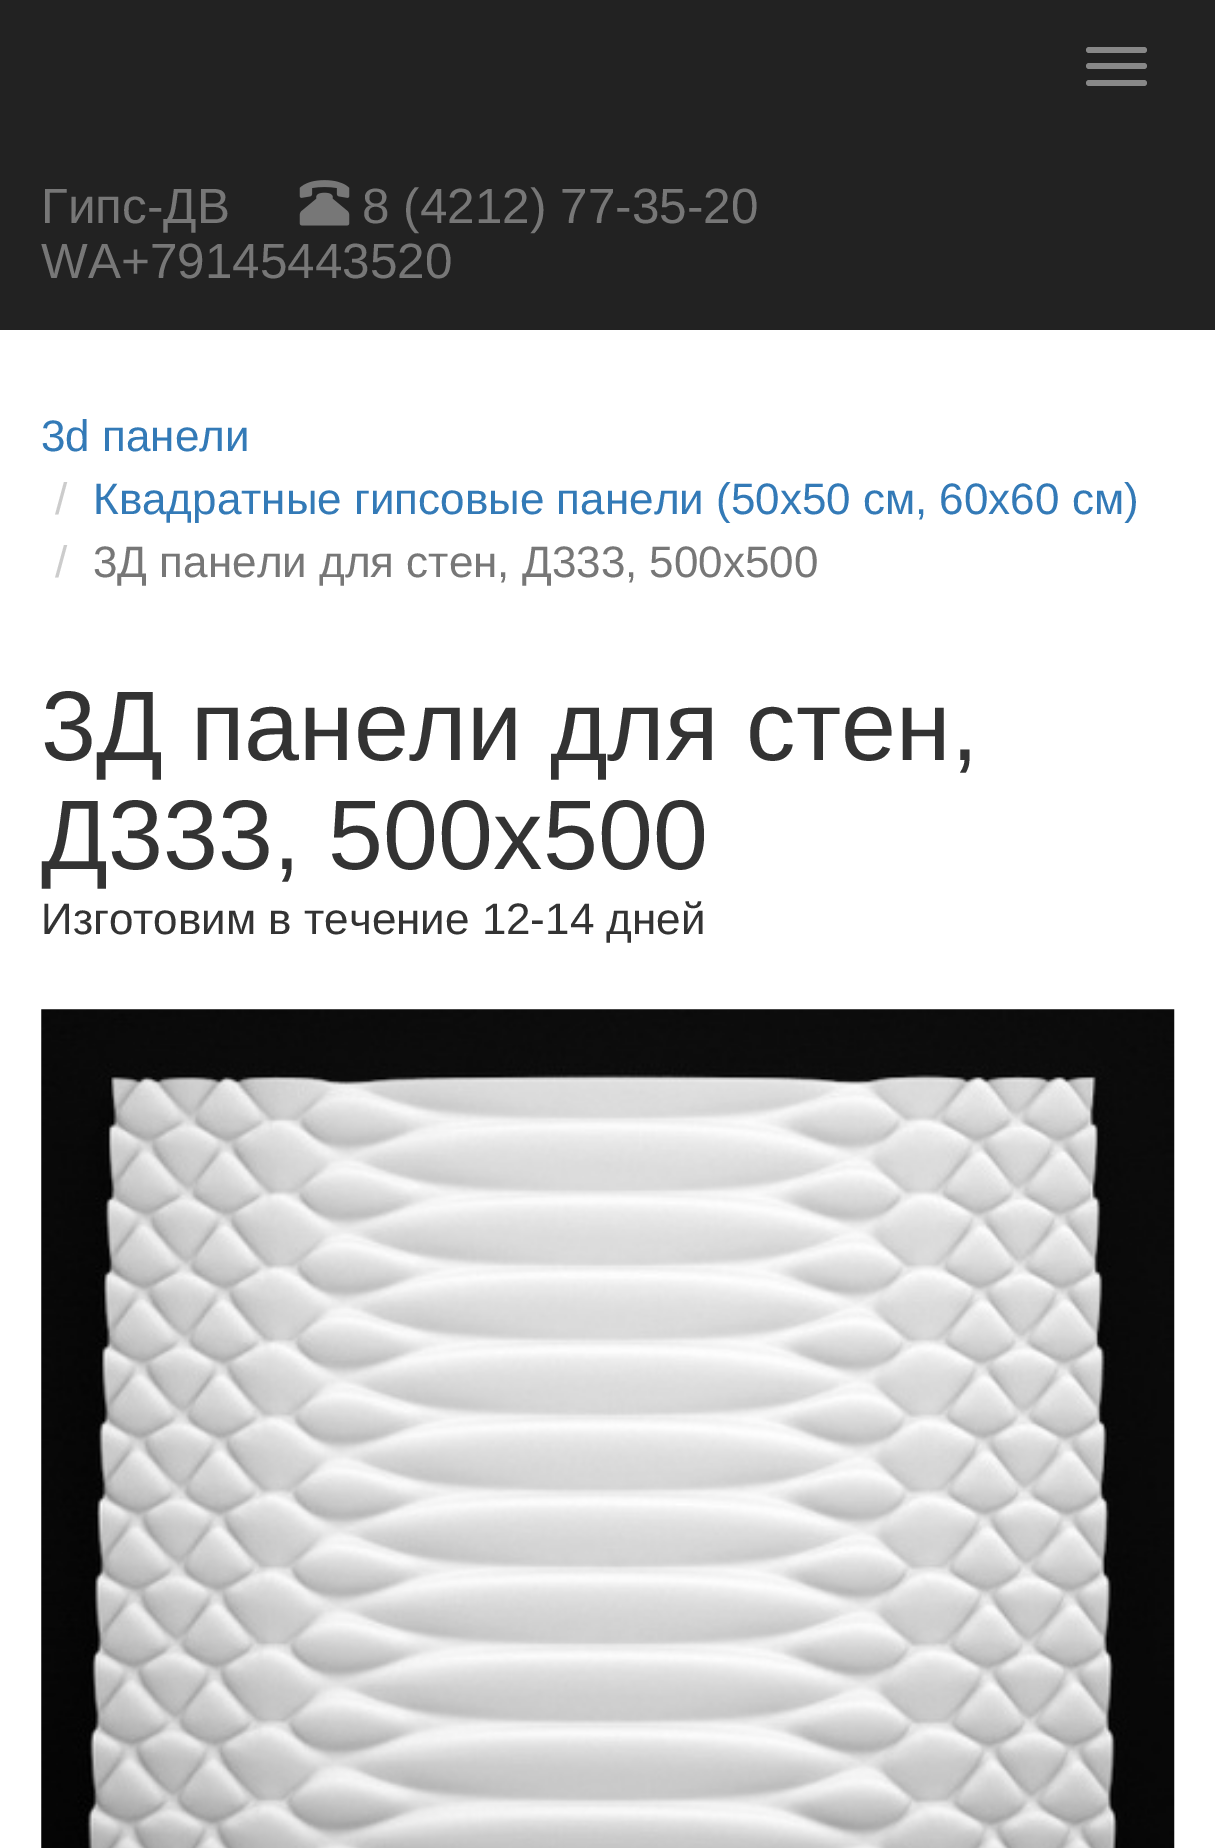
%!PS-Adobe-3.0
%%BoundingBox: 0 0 1215 1848
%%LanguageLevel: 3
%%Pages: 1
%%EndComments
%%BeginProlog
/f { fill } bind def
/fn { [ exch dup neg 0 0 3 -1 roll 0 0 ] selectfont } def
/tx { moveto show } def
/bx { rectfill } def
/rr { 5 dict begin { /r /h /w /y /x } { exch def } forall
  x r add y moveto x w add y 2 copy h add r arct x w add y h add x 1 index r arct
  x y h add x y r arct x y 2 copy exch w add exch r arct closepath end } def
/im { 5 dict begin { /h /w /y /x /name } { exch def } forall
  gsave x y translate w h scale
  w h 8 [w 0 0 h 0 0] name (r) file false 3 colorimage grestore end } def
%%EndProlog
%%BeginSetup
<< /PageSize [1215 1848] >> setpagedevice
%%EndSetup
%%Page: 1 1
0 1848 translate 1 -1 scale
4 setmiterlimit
1 setgray
0 0 1215 1848 bx
0.133 setgray
0 0 1215 330 bx
0.533 setgray
1086 47 61 6 3 rr f
1086 63 61 6 3 rr f
1086 80 61 6 3 rr f
/LiberationSans-Regular 49.5 fn
0.467 setgray
(Гипс-ДВ) 41 223 tx
(image0.raw) 299 180 51 46 im
(8 \(4212\) 77-35-20) 362 223 tx
(WA+79145443520) 41 278 tx
/LiberationSans-Regular 44 fn
0.2 0.478 0.718 setrgbcolor
(3d панели) 41 451 tx
0.8 setgray
(/) 55 514 tx
0.2 0.478 0.718 setrgbcolor
(Квадратные гипсовые панели \(50х50 см, 60х60 см\)) 93 514 tx
0.8 setgray
(/) 55 577 tx
0.467 setgray
(3Д панели для стен, Д333, 500х500) 93 577 tx
/LiberationSans-Regular 99 fn
0.2 setgray
(3Д панели для стен,) 41 760 tx
(Д333, 500х500) 41 869 tx
/LiberationSans-Regular 44 fn
(Изготовим в течение 12-14 дней) 41 934 tx
(image1.raw) 41 1009 1134 839 im
showpage
%%EOF
